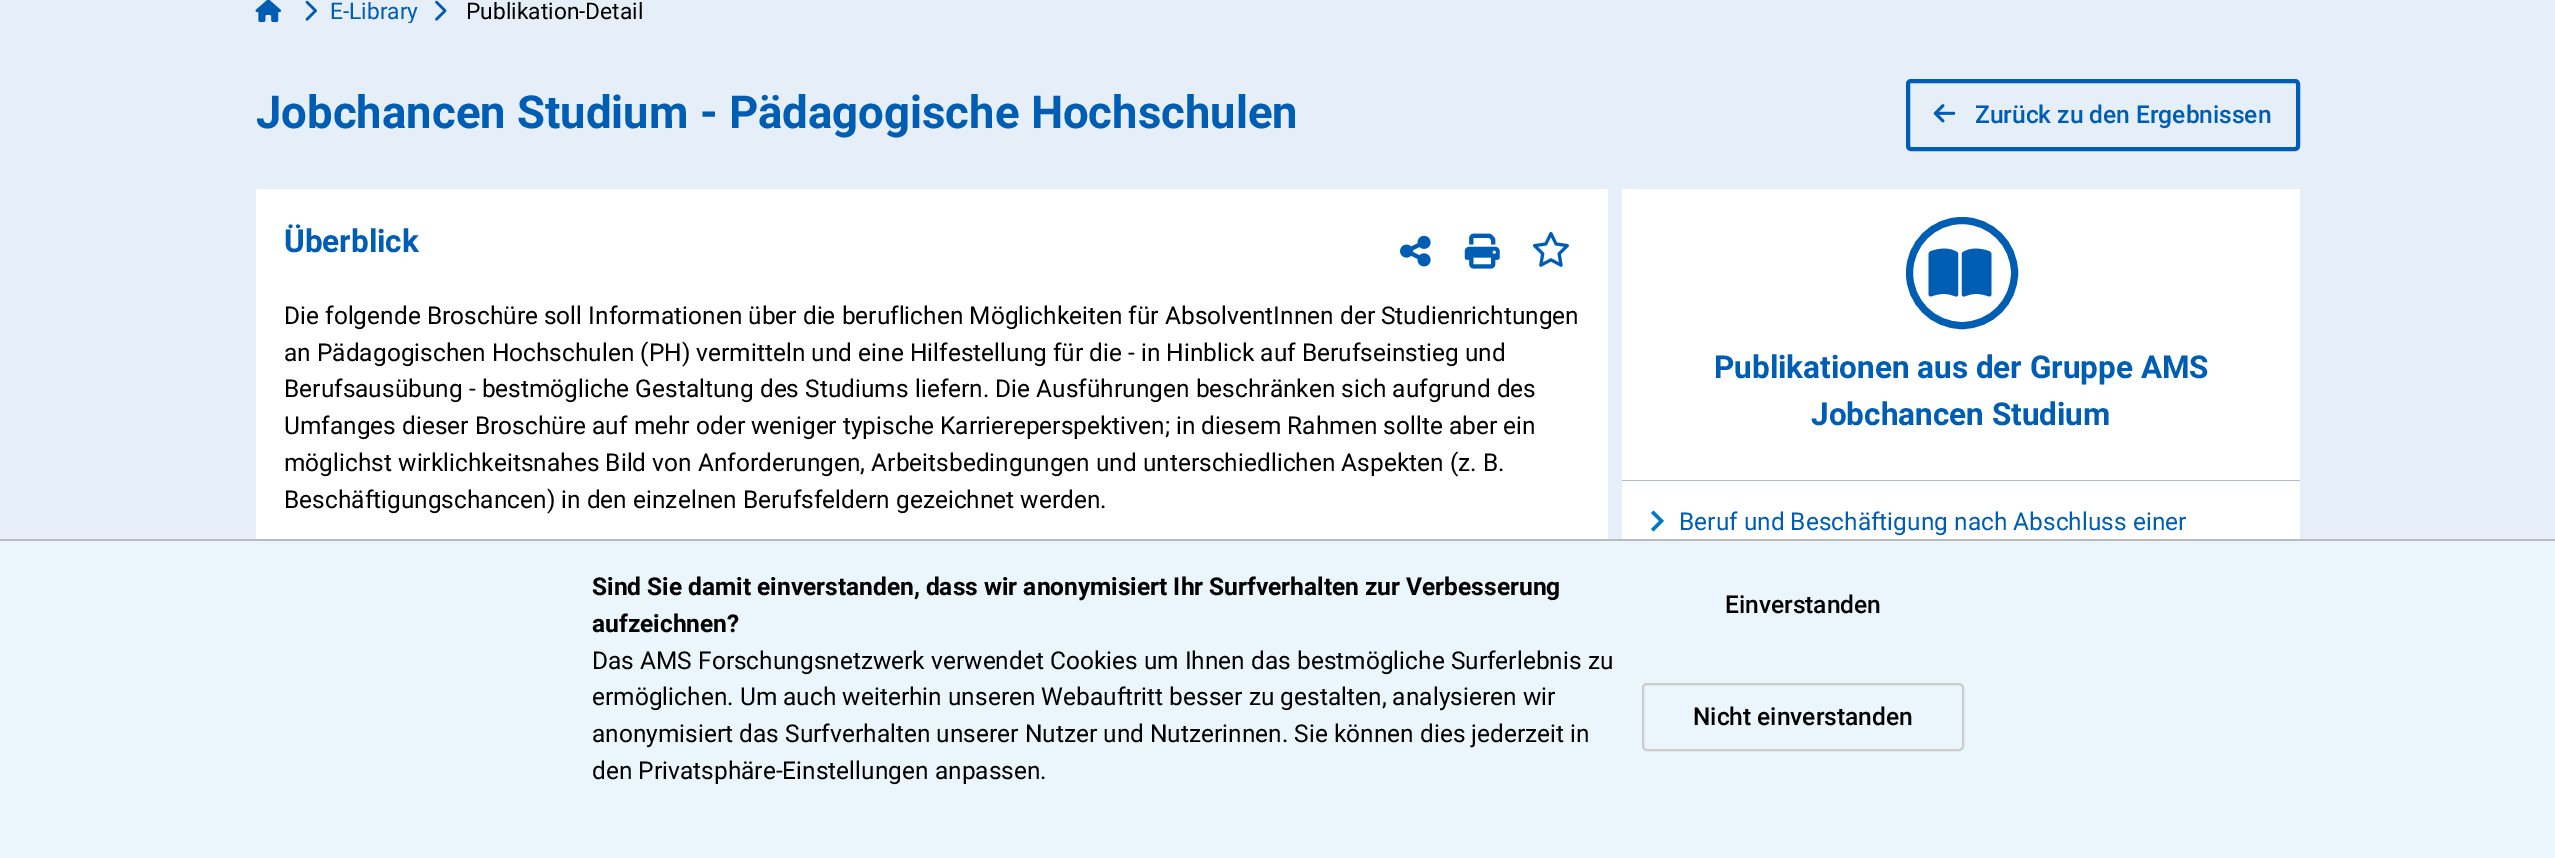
%!PS-Adobe-3.0
%%BoundingBox: 0 0 2555 858
%%LanguageLevel: 3
%%Pages: 1
%%EndComments
%%BeginProlog
/m { moveto } bind def
/l { lineto } bind def
/h { closepath } bind def
/f { fill } bind def
/S { stroke } bind def
/q { gsave } bind def
/Q { grestore } bind def
/w { setlinewidth } bind def
/fn { [ exch dup neg 0 0 3 -1 roll 0 0 ] selectfont } def
/tx { moveto show } def
/bx { rectfill } def
/ci { newpath 0 360 arc closepath } def
/rr { 5 dict begin { /r /h /w /y /x } { exch def } forall
  x r add y moveto x w add y 2 copy h add r arct x w add y h add x 1 index r arct
  x y h add x y r arct x y 2 copy exch w add exch r arct closepath end } def
/im { 5 dict begin { /h /w /y /x /name } { exch def } forall
  gsave x y translate w h scale
  w h 8 [w 0 0 h 0 0] name (r) file false 3 colorimage grestore end } def
%%EndProlog
%%BeginSetup
<< /PageSize [2555 858] >> setpagedevice
%%EndSetup
%%Page: 1 1
0 858 translate 1 -1 scale
4 setmiterlimit
0.902 0.937 0.973 setrgbcolor
0 0 2555 858 bx
(image0.raw) 255 0 27 23 im
(image1.raw) 305 0 12 21 im
q
331 0 87 23 rectclip
/Roboto-Regular 22.75 fn
0 0.365 0.706 setrgbcolor
(E-Library) 330 19 tx
Q
(image2.raw) 435 0 12 21 im
/Roboto-Regular 22.75 fn
0 setgray
(Publikation-Detail) 466 19 tx
/Roboto-Bold 45.5 fn
0 0.365 0.706 setrgbcolor
(Jobchancen Studium - Pädagogische Hochschulen) 256 128 tx
4 w
1908 81 390 68 3 rr S
(image3.raw) 1933 104 23 19 im
/Roboto-Medium 24.5 fn
(Zurück zu den Ergebnissen) 1975 123 tx
1 setgray
256 189 1352 350 bx
/Roboto-Bold 31.5 fn
0 0.365 0.706 setrgbcolor
(Überblick) 284 252 tx
(image4.raw) 1400 235 31 32 im
(image5.raw) 1464 233 36 36 im
(image6.raw) 1532 231 37 36 im
/Roboto-Regular 24.5 fn
0 setgray
(Die folgende Broschüre soll Informationen über die beruflichen Möglichkeiten für AbsolventInnen der Studienrichtungen) 284 324 tx
(an Pädagogischen Hochschulen \(PH\) vermitteln und eine Hilfestellung für die - in Hinblick auf Berufseinstieg und) 284 361 tx
(Berufsausübung - bestmögliche Gestaltung des Studiums liefern. Die Ausführungen beschränken sich aufgrund des) 284 397 tx
(Umfanges dieser Broschüre auf mehr oder weniger typische Karriereperspektiven; in diesem Rahmen sollte aber ein) 284 434 tx
(möglichst wirklichkeitsnahes Bild von Anforderungen, Arbeitsbedingungen und unterschiedlichen Aspekten \(z. B.) 284 471 tx
(Beschäftigungschancen\) in den einzelnen Berufsfeldern gezeichnet werden.) 284 508 tx
1 setgray
1622 189 678 291 bx
0.678 0.733 0.804 setrgbcolor
1622 480 678 1 bx
0 0.365 0.706 setrgbcolor
7 w
1962 273 52.5 ci S
(image7.raw) 1928 248 64 49 im
/Roboto-Bold 31.5 fn
(Publikationen aus der Gruppe AMS) 1714 378 tx
(Jobchancen Studium) 1811 425 tx
1 setgray
1622 481 678 58 bx
0 0.471 0.769 setrgbcolor
1653.5 510.5 m 1651 513 l 1659 521 l 1651 529 l 1653.5 531.5 l 1664 521 l h f
/Roboto-Regular 24.5 fn
0 0.365 0.706 setrgbcolor
(Beruf und Beschäftigung nach Abschluss einer) 1679 530 tx
0.922 0.961 0.988 setrgbcolor
0 541 2555 317 bx
0.729 setgray
0 539 2555 2 bx
/Roboto-Bold 24.5 fn
0 setgray
(Sind Sie damit einverstanden, dass wir anonymisiert Ihr Surfverhalten zur Verbesserung) 592 595 tx
(aufzeichnen?) 592 632 tx
/Roboto-Regular 24.5 fn
(Das AMS Forschungsnetzwerk verwendet Cookies um Ihnen das bestmögliche Surferlebnis zu) 592 669 tx
(ermöglichen. Um auch weiterhin unseren Webauftritt besser zu gestalten, analysieren wir) 592 705 tx
(anonymisiert das Surfverhalten unserer Nutzer und Nutzerinnen. Sie können dies jederzeit in) 592 742 tx
(den Privatsphäre-Einstellungen anpassen.) 592 779 tx
/Roboto-Medium 24.5 fn
(Einverstanden) 1725 613 tx
0.8 setgray
2 w
1643 684 320 66 4 rr S
0 setgray
(Nicht einverstanden) 1693 725 tx
showpage
%%EOF
